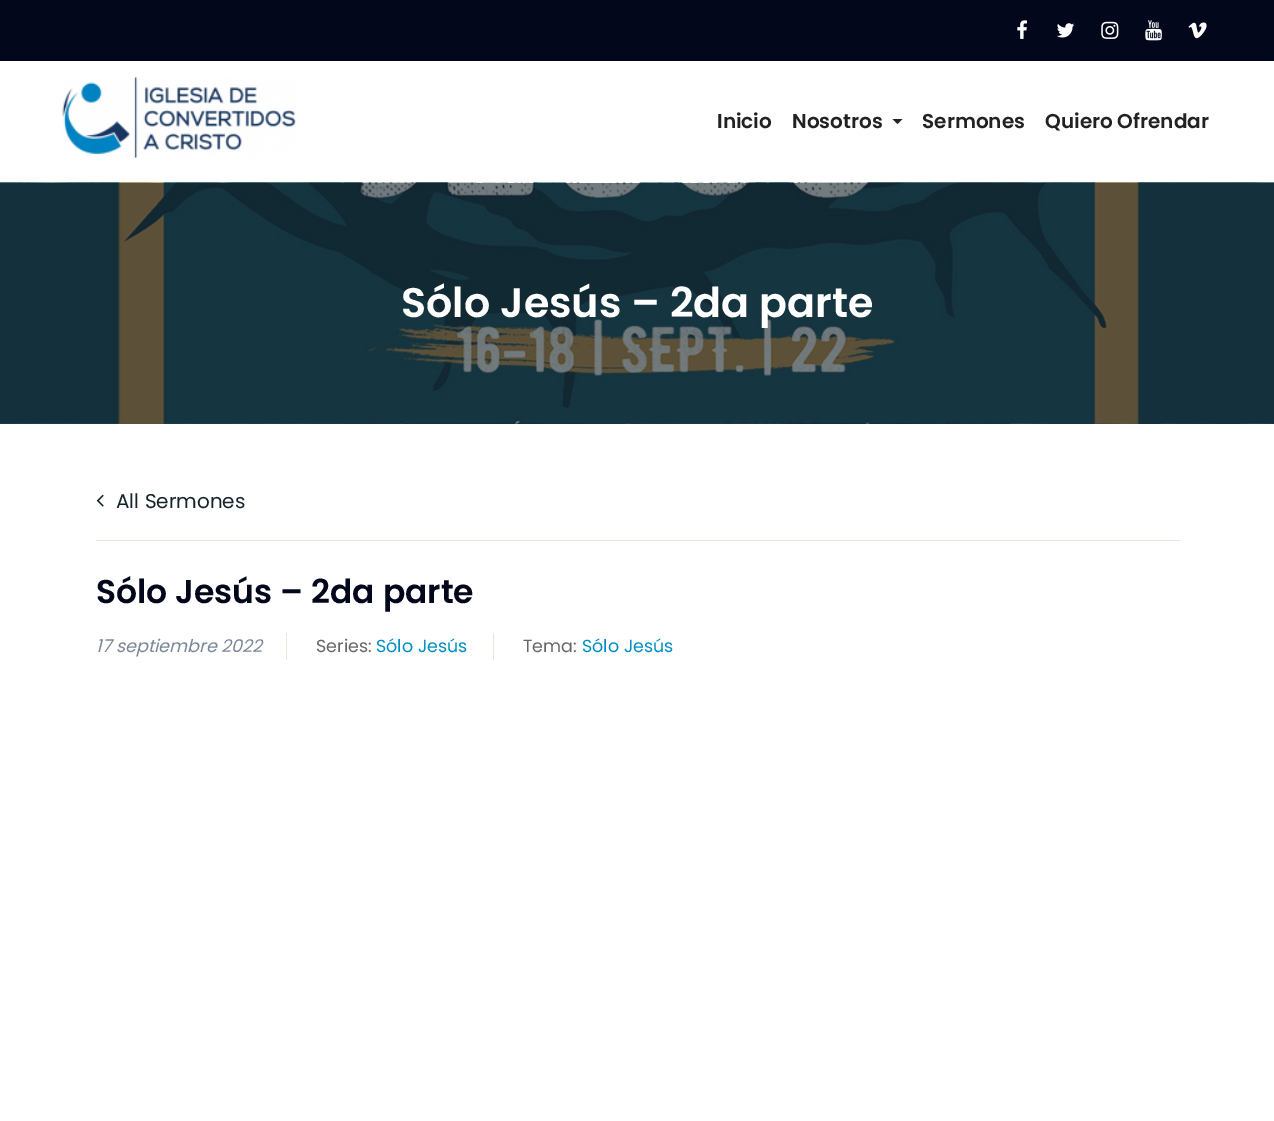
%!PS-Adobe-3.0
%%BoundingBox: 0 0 1274 1121
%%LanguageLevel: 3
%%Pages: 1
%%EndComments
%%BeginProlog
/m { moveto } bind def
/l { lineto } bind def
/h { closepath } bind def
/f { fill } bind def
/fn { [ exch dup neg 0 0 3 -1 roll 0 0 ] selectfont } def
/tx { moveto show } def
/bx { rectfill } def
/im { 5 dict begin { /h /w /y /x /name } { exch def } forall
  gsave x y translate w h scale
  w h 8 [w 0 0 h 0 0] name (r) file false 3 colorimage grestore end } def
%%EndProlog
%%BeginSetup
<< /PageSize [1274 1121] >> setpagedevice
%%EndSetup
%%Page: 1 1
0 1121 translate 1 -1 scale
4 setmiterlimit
1 setgray
0 0 1274 1121 bx
0.008 0.027 0.106 setrgbcolor
0 0 1274 61 bx
(image0.raw) 1017 20 10 19 im
(image1.raw) 1056 23 19 15 im
(image2.raw) 1101 21 18 18 im
(image3.raw) 1145 20 17 21 im
(image4.raw) 1188 22 19 17 im
(image5.raw) 62 77 234 81 im
/Poppins-SemiBold 20 fn
0.133 setgray
(Inicio) 717 128 tx
(Nosotros) 792 128 tx
892.5 119 m 902.5 119 l 897.5 124 l h f
(Sermones) 922 128 tx
(Quiero Ofrendar) 1045 128 tx
(image6.raw) 0 182 1274 242 im
(image7.raw) 0 182 1274 242 im
/Poppins-SemiBold 41.25 fn
1 setgray
(Sólo Jesús – 2da parte) 401 317 tx
0.914 0.898 0.871 setrgbcolor
96 540 1084 1 bx
(image8.raw) 96 494 8 13 im
/Poppins-Regular 20 fn
0.09 0.141 0.165 setrgbcolor
(All Sermones) 116 508 tx
/Poppins-SemiBold 33 fn
0.008 0.027 0.106 setrgbcolor
(Sólo Jesús – 2da parte) 96 603 tx
0.914 0.898 0.871 setrgbcolor
286 633 1 27 bx
/Poppins-Italic 17.5 fn
0.482 0.525 0.592 setrgbcolor
(17 septiembre 2022) 96 652 tx
0.914 0.898 0.871 setrgbcolor
493 633 1 27 bx
/Poppins-Regular 17.5 fn
0.4 setgray
(Series:) 316 652 tx
0 0.557 0.761 setrgbcolor
(Sólo Jesús) 376 652 tx
0.4 setgray
(Tema:) 523 652 tx
0 0.557 0.761 setrgbcolor
(Sólo Jesús) 582 652 tx
showpage
%%EOF
